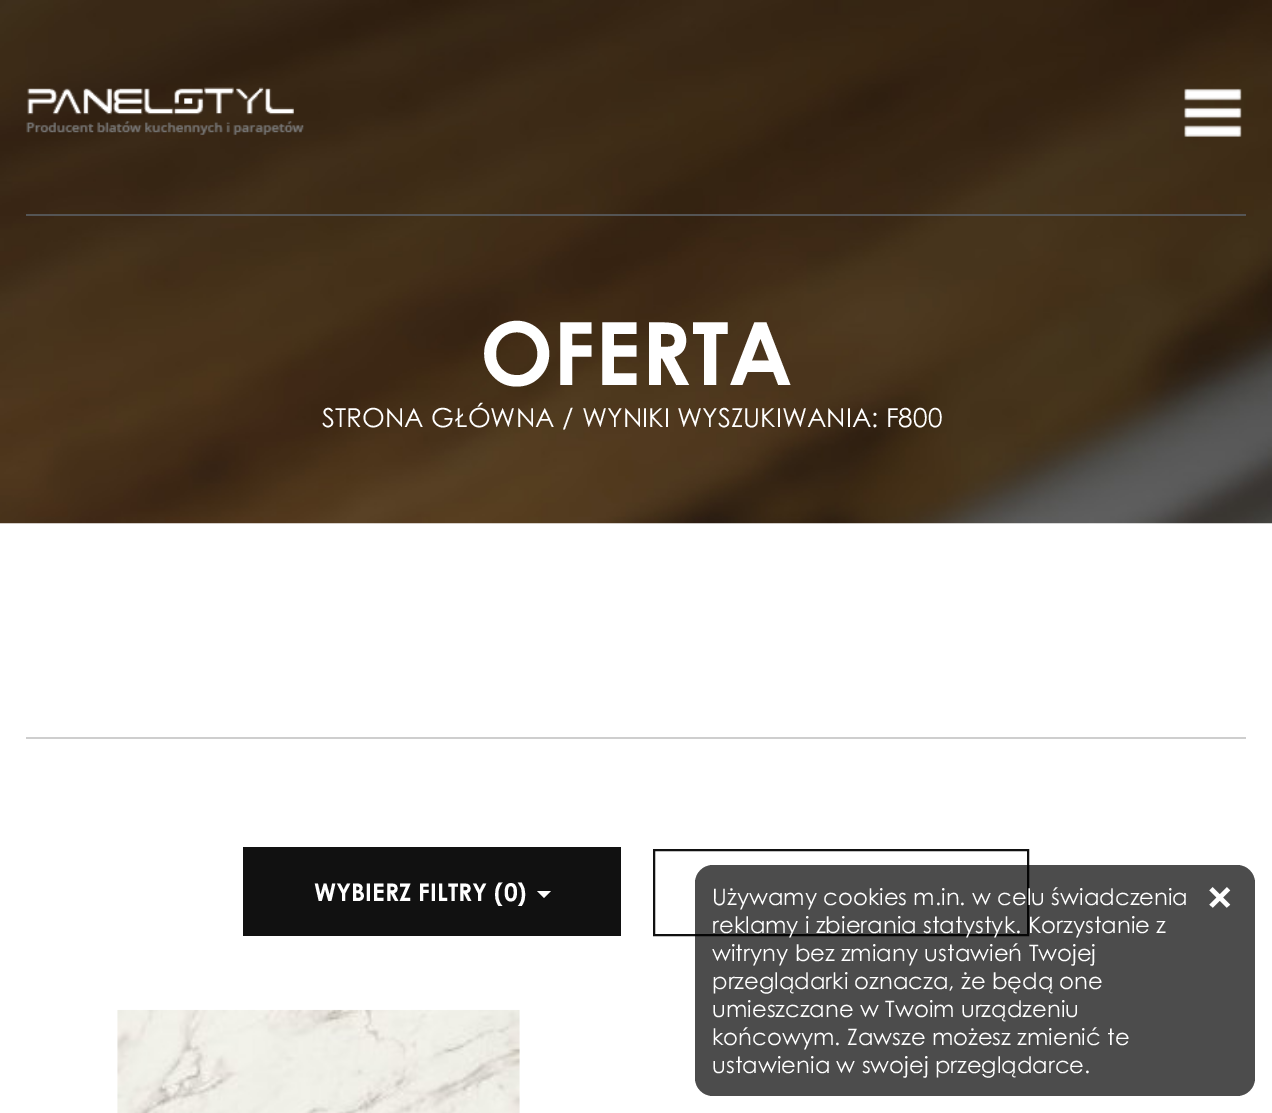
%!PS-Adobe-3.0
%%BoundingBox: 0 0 1272 1113
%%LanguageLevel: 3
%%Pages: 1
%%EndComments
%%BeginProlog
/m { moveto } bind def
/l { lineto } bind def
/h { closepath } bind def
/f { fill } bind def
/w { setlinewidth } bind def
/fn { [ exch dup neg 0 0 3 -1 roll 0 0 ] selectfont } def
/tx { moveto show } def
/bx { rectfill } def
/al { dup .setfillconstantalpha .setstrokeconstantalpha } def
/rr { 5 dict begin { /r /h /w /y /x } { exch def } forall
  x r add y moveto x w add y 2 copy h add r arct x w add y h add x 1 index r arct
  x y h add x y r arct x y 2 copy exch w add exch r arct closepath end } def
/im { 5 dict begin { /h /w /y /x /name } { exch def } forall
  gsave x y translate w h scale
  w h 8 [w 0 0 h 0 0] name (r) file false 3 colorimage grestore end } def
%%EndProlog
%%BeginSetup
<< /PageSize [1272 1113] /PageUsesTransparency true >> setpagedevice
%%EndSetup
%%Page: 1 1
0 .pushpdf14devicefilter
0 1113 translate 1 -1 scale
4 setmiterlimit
1 setgray
0 0 1272 1113 bx
(image0.raw) 0 0 1272 524 im
0.333 setgray
26 214 1220 2 bx
(image1.raw) 26 87 278 48 im
(image2.raw) 1184 88 58 49 im
/CenturyGothic-Bold 87.5 fn
1 setgray
(OFERTA) 480 385 tx
/CenturyGothic-Regular 26.25 fn
(STRONA GŁÓWNA /) 322 427 tx
(WYNIKI WYSZUKIWANIA: F800) 582 427 tx
0.808 setgray
26 737 1220 2 bx
0.067 setgray
243 847 378 89 bx
/CenturyGothic-Bold 24.5 fn
1 setgray
(WYBIERZ FILTRY \(0\)) 314 901 tx
537 891 m 551 891 l 544 898 l h f
0.067 setgray
2 w
654 850 374 85 rectstroke
(image3.raw) 117 1009 403 104 im
0.7 al
0 setgray
695 865 560 231 18 rr f
/CenturyGothic-Regular 22.75 fn
1 al
1 setgray
(Używamy cookies m.in. w celu świadczenia) 712 905 tx
/CenturyGothic-Bold 46 fn
(×) 1206 914 tx
/CenturyGothic-Regular 22.75 fn
(reklamy i zbierania statystyk. Korzystanie z) 712 933 tx
(witryny bez zmiany ustawień Twojej) 712 961 tx
(przeglądarki oznacza, że będą one) 712 989 tx
(umieszczane w Twoim urządzeniu) 712 1017 tx
(końcowym. Zawsze możesz zmienić te) 712 1045 tx
(ustawienia w swojej przeglądarce.) 712 1073 tx
.poppdf14devicefilter showpage
%%EOF
